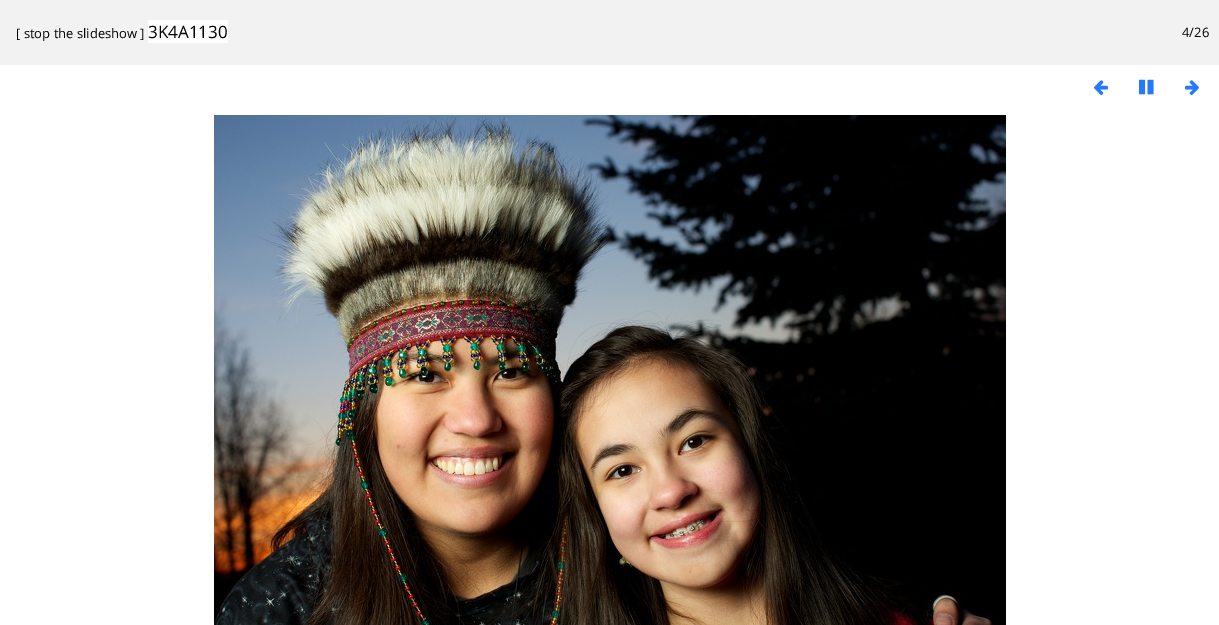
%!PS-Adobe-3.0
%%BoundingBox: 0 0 1219 625
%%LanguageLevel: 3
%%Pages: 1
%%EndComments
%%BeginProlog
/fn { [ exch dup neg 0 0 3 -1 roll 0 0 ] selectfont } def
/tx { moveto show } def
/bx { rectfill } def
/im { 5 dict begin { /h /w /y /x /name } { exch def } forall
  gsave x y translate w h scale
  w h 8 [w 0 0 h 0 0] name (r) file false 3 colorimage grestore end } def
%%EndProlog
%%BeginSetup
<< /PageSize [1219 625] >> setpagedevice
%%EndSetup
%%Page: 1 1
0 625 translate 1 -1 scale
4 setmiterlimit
1 setgray
0 0 1219 625 bx
0.949 setgray
0 0 1219 65 bx
/OpenSans-Regular 13 fn
0 setgray
([ stop the slideshow ]) 16 38 tx
1 setgray
148 20 80 23 bx
/OpenSans-Regular 17 fn
0 setgray
(3K4A1130) 148 38 tx
/OpenSans-Regular 13 fn
(4/26) 1182 37 tx
/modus-Regular 17 fn
0.137 0.475 1 setrgbcolor
(←) 1094 93 tx
(image0.raw) 1139 79 15 16 im
(→) 1185 93 tx
(image1.raw) 214 115 792 510 im
showpage
%%EOF
